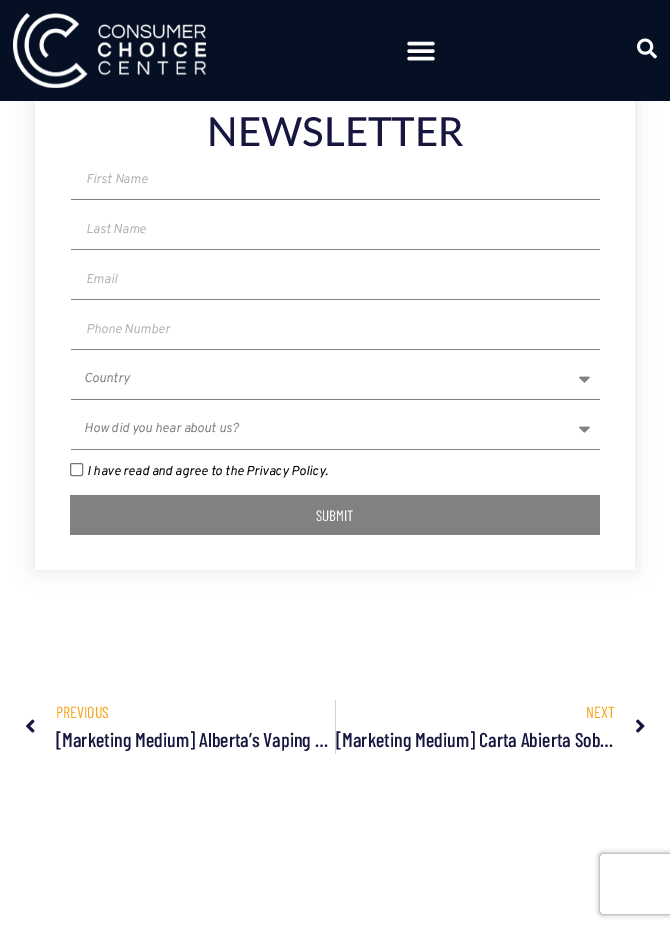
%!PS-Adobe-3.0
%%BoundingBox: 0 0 670 928
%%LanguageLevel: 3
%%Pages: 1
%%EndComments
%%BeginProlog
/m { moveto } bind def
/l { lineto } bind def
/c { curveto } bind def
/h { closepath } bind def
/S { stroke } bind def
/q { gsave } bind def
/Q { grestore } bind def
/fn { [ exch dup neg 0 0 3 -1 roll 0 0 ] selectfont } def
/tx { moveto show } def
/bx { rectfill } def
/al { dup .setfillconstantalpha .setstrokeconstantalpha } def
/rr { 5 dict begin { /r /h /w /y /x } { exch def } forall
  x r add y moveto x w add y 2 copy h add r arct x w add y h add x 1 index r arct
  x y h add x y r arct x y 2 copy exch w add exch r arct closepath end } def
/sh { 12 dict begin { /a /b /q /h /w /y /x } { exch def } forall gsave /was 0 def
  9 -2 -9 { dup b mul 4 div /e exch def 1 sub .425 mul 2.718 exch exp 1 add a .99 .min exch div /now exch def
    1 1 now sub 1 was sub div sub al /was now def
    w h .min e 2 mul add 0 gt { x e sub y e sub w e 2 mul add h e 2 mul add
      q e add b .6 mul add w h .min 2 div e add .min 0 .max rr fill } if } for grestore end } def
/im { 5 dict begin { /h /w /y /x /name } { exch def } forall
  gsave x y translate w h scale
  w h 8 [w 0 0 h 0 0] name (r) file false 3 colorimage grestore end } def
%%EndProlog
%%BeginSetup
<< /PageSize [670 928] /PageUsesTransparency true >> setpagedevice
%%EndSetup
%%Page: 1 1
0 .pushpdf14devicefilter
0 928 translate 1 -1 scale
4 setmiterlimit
1 setgray
0 0 670 928 bx
q
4 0 m 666 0 l 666 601 l 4 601 l h 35 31 m 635 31 l 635 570 l 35 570 l h eoclip newpath
0 setgray
35 31 600 539 0 10 0.1 sh
Q
0.024 0.063 0.141 setrgbcolor
0 0 670 101 bx
(image0.raw) 13 13 193 75 im
(image1.raw) 407 41 28 20 im
(image2.raw) 637 38 20 21 im
/Lato-Medium 40 fn
0.086 0.086 0.247 setrgbcolor
(NEWSLETTER) 207 146 tx
0.506 setgray
71 199 529 1 bx
/Overpass-Italic 13 fn
0.702 setgray
(First Name) 86 183 tx
0.506 setgray
71 249 529 1 bx
0.702 setgray
(Last Name) 86 233 tx
0.506 setgray
71 299 529 1 bx
0.702 setgray
(Email) 86 283 tx
0.506 setgray
71 349 529 1 bx
0.702 setgray
(Phone Number) 86 333 tx
0.506 setgray
71 399 529 1 bx
(Country) 84 382 tx
(image3.raw) 579 376 11 7 im
71 449 529 1 bx
(How did you hear about us?) 84 432 tx
(image3.raw) 579 426 11 7 im
0.463 setgray
70.5 463.5 12 12 1.5 rr S
0 setgray
(I have read and agree to the Privacy Policy.) 87 475 tx
0.506 setgray
70 495 530 40 bx
/BarlowCondensed-Regular 15 fn
1 setgray
(SUBMIT) 316 521 tx
q
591 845 m 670 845 l 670 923 l 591 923 l h 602 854 m 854 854 l 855 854 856 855 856 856 c 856 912 l 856 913 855 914 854 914 c 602 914 l 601 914 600 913 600 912 c 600 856 l 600 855 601 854 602 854 c h eoclip newpath
0.502 setgray
600 854 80 60 2 2.5 1 sh
Q
(image4.raw) 26 719 9 14 im
/BarlowCondensed-Regular 16 fn
0.965 0.635 0.075 setrgbcolor
(PREVIOUS) 56 718 tx
/BarlowCondensed-Medium 20 fn
0.086 0.086 0.247 setrgbcolor
([Marketing Medium] Alberta’s Vaping …) 56 747 tx
0.824 0.82 0.847 setrgbcolor
335 700 1 54 bx
/BarlowCondensed-Regular 16 fn
0.965 0.635 0.075 setrgbcolor
(NEXT) 586 718 tx
/BarlowCondensed-Medium 20 fn
0.086 0.086 0.247 setrgbcolor
([Marketing Medium] Carta Abierta Sob…) 336 747 tx
(image5.raw) 636 719 9 14 im
.poppdf14devicefilter showpage
%%EOF
